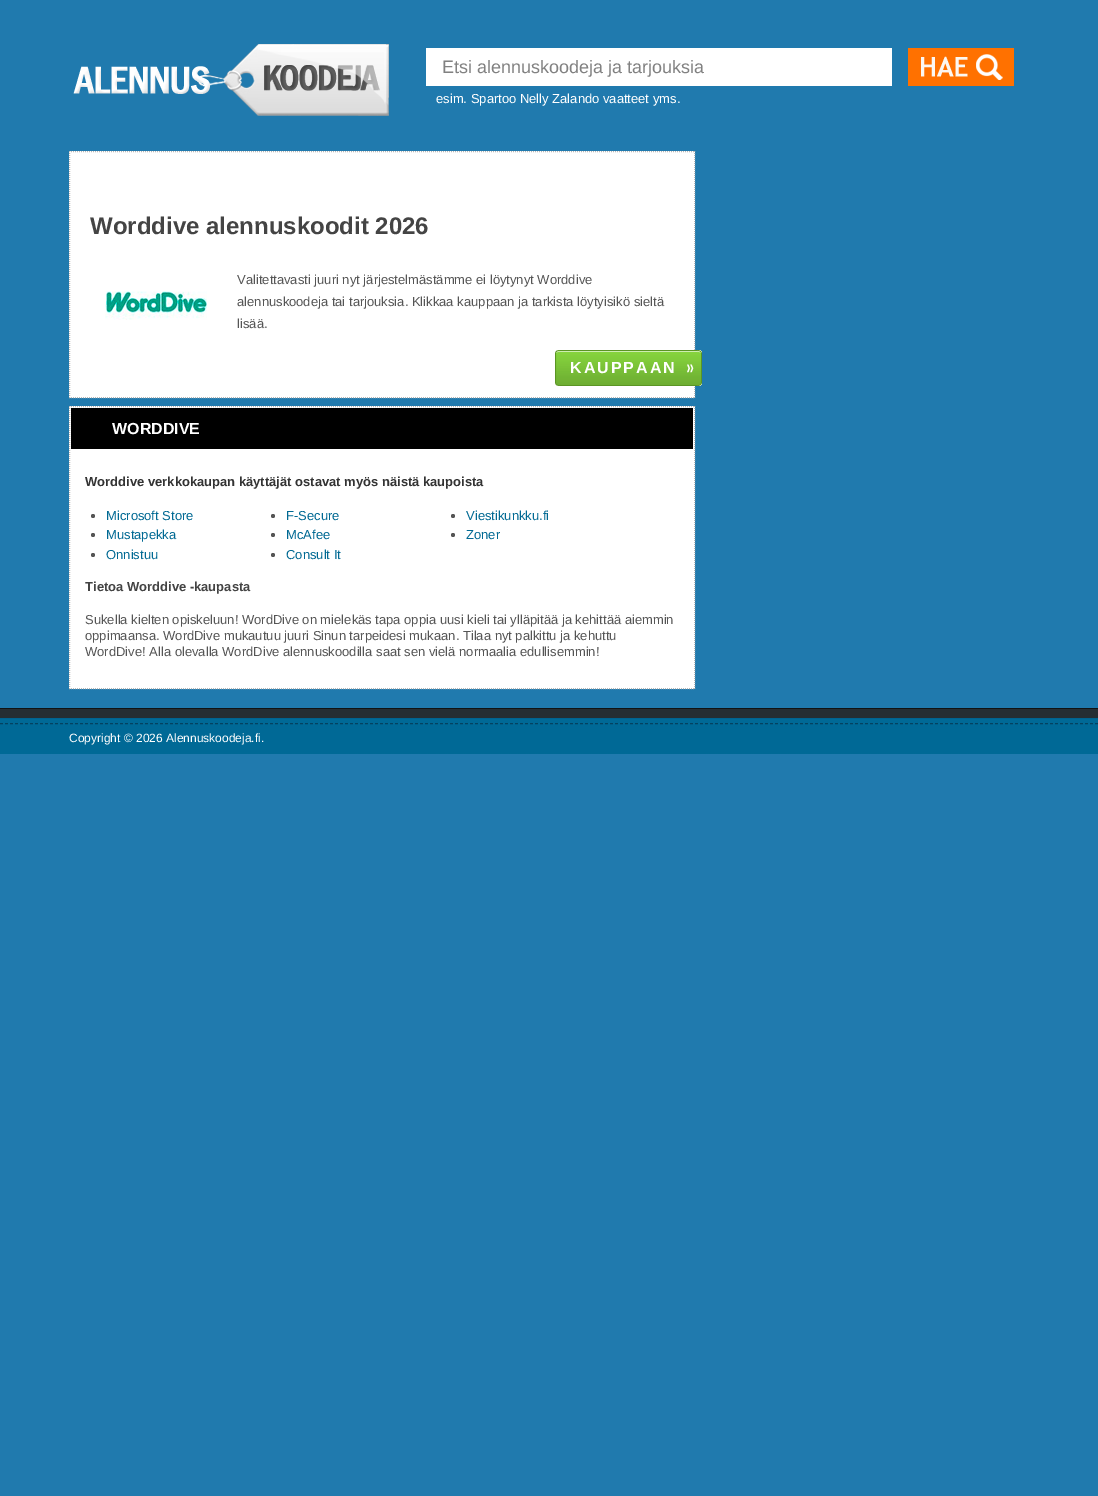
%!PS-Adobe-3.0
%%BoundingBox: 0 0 1098 1496
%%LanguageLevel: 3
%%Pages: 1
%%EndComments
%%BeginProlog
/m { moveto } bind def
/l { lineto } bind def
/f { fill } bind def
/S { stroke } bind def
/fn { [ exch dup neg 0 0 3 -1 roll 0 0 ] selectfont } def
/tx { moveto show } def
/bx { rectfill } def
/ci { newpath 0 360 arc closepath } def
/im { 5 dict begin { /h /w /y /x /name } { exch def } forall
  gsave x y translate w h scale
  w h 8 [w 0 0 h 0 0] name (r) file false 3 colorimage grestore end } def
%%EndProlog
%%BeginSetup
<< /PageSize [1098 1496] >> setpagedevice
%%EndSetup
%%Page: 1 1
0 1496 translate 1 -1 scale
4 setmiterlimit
0.125 0.478 0.682 setrgbcolor
0 0 1098 1496 bx
(image0.raw) 73 44 316 72 im
1 setgray
426 48 466 38 bx
/LiberationSans-Regular 18 fn
0.506 setgray
(Etsi alennuskoodeja ja tarjouksia) 442 73 tx
(image1.raw) 908 48 106 38 im
/LiberationSans-Regular 13 fn
1 setgray
(esim. Spartoo Nelly Zalando vaatteet yms.) 436 103 tx
69 151 626 247 bx
0.725 setgray
[1 1] 0 setdash
69 151.5 m 695 151.5 l S
694.5 151 m 694.5 398 l S
69 397.5 m 695 397.5 l S
69.5 151 m 69.5 398 l S
/LiberationSans-Bold 24 fn
0.267 setgray
(Worddive alennuskoodit 2026) 90 234 tx
(image2.raw) 105 291 102 29 im
/LiberationSans-Regular 13 fn
0.333 setgray
(Valitettavasti juuri nyt järjestelmästämme ei löytynyt Worddive) 237 284 tx
(alennuskoodeja tai tarjouksia. Klikkaa kauppaan ja tarkista löytyisikö sieltä) 237 306 tx
(lisää.) 237 328 tx
(image3.raw) 640 350 62 36 im
(image4.raw) 555 350 85 36 im
/LiberationSans-Bold 16 fn
1 setgray
570 373 m 2 0 (KAUPPAAN) ashow
69 406 626 283 bx
0.725 setgray
69 406.5 m 695 406.5 l S
694.5 406 m 694.5 689 l S
69 688.5 m 695 688.5 l S
69.5 406 m 69.5 689 l S
0 setgray
71 408 622 41 bx
1 setgray
(WORDDIVE) 112 434 tx
/LiberationSans-Bold 13 fn
0.2 setgray
(Worddive verkkokaupan käyttäjät ostavat myös näistä kaupoista) 85 486 tx
0.333 setgray
93 516 2 ci f
/LiberationSans-Regular 13 fn
0 0.412 0.576 setrgbcolor
(Microsoft Store) 106 520 tx
0.333 setgray
273 516 2 ci f
0 0.412 0.576 setrgbcolor
(F-Secure) 286 520 tx
0.333 setgray
453 516 2 ci f
0 0.412 0.576 setrgbcolor
(Viestikunkku.fi) 466 520 tx
0.333 setgray
93 535 2 ci f
0 0.412 0.576 setrgbcolor
(Mustapekka) 106 539 tx
0.333 setgray
273 535 2 ci f
0 0.412 0.576 setrgbcolor
(McAfee) 286 539 tx
0.333 setgray
453 535 2 ci f
0 0.412 0.576 setrgbcolor
(Zoner) 466 539 tx
0.333 setgray
93 555 2 ci f
0 0.412 0.576 setrgbcolor
(Onnistuu) 106 559 tx
0.333 setgray
273 555 2 ci f
0 0.412 0.576 setrgbcolor
(Consult It) 286 559 tx
/LiberationSans-Bold 13 fn
0.267 setgray
(Tietoa Worddive -kaupasta) 85 591 tx
/LiberationSans-Regular 13 fn
0.333 setgray
(Sukella kielten opiskeluun! WordDive on mielekäs tapa oppia uusi kieli tai ylläpitää ja kehittää aiemmin) 85 624 tx
(oppimaansa. WordDive mukautuu juuri Sinun tarpeidesi mukaan. Tilaa nyt palkittu ja kehuttu) 85 640 tx
(WordDive! Alla olevalla WordDive alennuskoodilla saat sen vielä normaalia edullisemmin!) 85 656 tx
(image5.raw) 0 708 1098 46 im
0.012 0.259 0.376 setrgbcolor
[3 2] 0 setdash
0 723.5 m 1098 723.5 l S
/LiberationSans-Regular 12 fn
1 setgray
(Copyright © 2026 Alennuskoodeja.fi.) 69 742 tx
showpage
%%EOF
